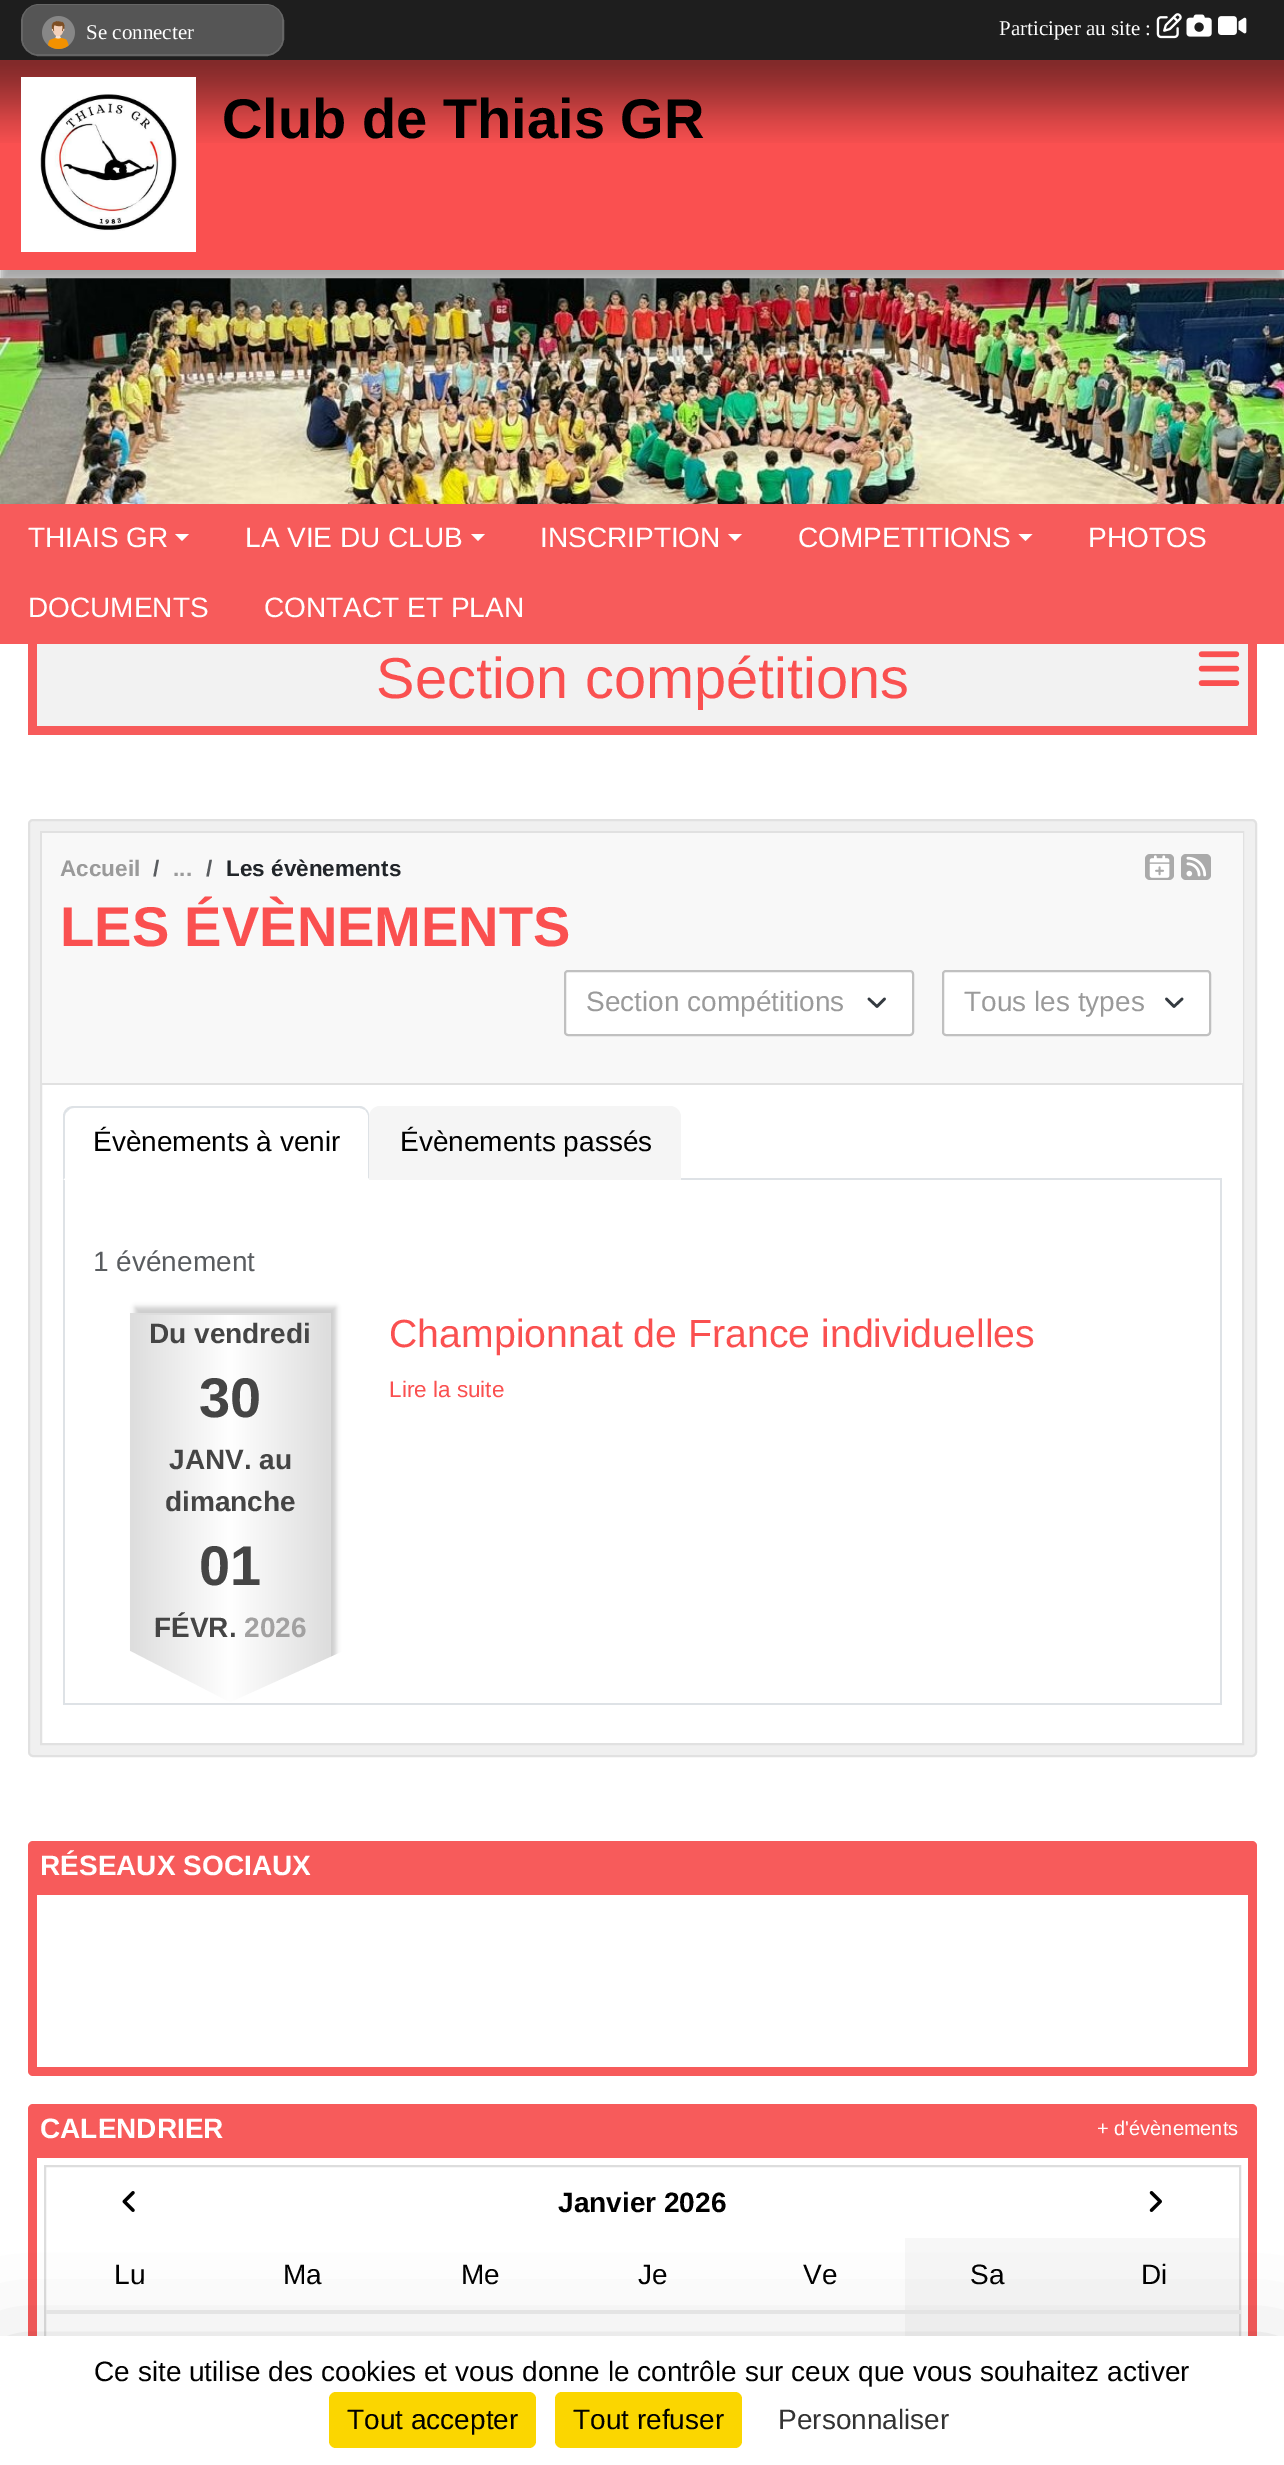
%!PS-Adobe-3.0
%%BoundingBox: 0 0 1284 2465
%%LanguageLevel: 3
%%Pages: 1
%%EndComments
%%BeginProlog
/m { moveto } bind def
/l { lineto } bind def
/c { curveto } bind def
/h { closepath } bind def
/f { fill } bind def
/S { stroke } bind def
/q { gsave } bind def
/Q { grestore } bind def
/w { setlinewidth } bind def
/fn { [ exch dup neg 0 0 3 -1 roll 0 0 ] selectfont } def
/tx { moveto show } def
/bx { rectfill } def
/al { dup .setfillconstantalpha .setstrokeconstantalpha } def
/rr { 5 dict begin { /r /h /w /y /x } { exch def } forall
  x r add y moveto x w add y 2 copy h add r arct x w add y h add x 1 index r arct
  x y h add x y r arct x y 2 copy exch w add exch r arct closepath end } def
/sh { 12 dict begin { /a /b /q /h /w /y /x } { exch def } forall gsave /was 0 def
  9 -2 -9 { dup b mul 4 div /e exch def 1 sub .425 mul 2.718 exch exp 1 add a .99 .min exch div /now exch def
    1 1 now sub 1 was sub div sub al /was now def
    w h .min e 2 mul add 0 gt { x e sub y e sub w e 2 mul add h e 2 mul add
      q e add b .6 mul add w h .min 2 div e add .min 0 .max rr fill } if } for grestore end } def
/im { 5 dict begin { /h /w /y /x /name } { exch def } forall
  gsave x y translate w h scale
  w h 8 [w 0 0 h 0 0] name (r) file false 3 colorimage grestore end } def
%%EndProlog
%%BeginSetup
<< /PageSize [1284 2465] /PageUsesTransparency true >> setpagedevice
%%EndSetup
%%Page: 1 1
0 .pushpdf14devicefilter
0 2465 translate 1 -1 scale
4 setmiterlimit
1 setgray
0 0 1284 2465 bx
0.314 setgray
0 72 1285 210 0 4.5 0.5 sh
0.118 setgray
0 0 1284 60 bx
0.4 setgray
2 w
22 5 261 50 17 rr S
0.333 setgray
23 5 259 49 16 rr f
(image0.raw) 42 16 33 33 im
/LiberationSerif-Regular 21 fn
1 setgray
(Se connecter) 86 39 tx
(Participer au site :) 999 35 tx
(image1.raw) 1156 13 26 26 im
(image2.raw) 1186 14 26 23 im
(image3.raw) 1218 16 29 19 im
0.98 0.314 0.314 setrgbcolor
0 60 1284 210 bx
(image4.raw) 0 60 1284 83 im
(image5.raw) 21 77 175 175 im
/LiberationSans-Bold 56 fn
0 setgray
(Club de Thiais GR) 222 138 tx
(image6.raw) 0 278 1284 226 im
0.969 0.357 0.357 setrgbcolor
0 504 1284 140 bx
/LiberationSans-Regular 28 fn
1 setgray
(THIAIS GR) 28 547 tx
175 534 m 189 534 l 182 541 l h f
(LA VIE DU CLUB) 245 547 tx
471 534 m 485 534 l 478 541 l h f
(INSCRIPTION) 540 547 tx
728 534 m 742 534 l 735 541 l h f
(COMPETITIONS) 798 547 tx
1018.5 534 m 1032.5 534 l 1025.5 541 l h f
(PHOTOS) 1088 547 tx
(DOCUMENTS) 28 617 tx
(CONTACT ET PLAN) 264 617 tx
0.949 setgray
37 644 1211 82 bx
0.969 0.357 0.357 setrgbcolor
1248 644 9 82 bx
37 726 1220 9 bx
28 644 9 91 bx
/LiberationSans-Regular 57.75 fn
0.98 0.314 0.314 setrgbcolor
(Section compétitions) 376 698 tx
(image7.raw) 1198 651 42 35 im
0.941 setgray
29 820 1227 936 4 rr q f Q
0.882 setgray
S
1 setgray
42 1085 1200 658 bx
0.882 setgray
41 832 1202 912 rectstroke
0.973 setgray
42 833 1201 250 bx
0.882 setgray
42 1083 1201 2 bx
/LiberationSans-Bold 22.5 fn
0.604 setgray
(Accueil) 60 876 tx
0.349 0.361 0.373 setrgbcolor
(/) 153 876 tx
0.604 setgray
(...) 173 876 tx
0.349 0.361 0.373 setrgbcolor
(/) 206 876 tx
0.129 0.145 0.161 setrgbcolor
(Les évènements) 226 876 tx
0.667 setgray
1145 854 29 26 5 rr f
(image8.raw) 1149 855 21 23 im
1181 854 30 26 5 rr f
(image9.raw) 1186 856 21 21 im
/LiberationSans-Bold 56 fn
0.98 0.314 0.314 setrgbcolor
(LES ÉVÈNEMENTS) 60 946 tx
1 setgray
564 970 350 66 4 rr f
0.204 0.227 0.251 setrgbcolor
2.6 w
1 setlinecap
1 setlinejoin
869 999 m 877 1006.5 l 884.5 999 l S
0.753 setgray
2 w
0 setlinecap
0 setlinejoin
565 971 348 64 3 rr S
/LiberationSans-Regular 28 fn
0.604 setgray
(Section compétitions) 586 1011 tx
1 setgray
942 970 269 66 4 rr f
0.204 0.227 0.251 setrgbcolor
2.6 w
1 setlinecap
1 setlinejoin
1166.5 999 m 1174 1006.5 l 1182 999 l S
0.753 setgray
2 w
0 setlinecap
0 setlinejoin
943 971 267 64 3 rr S
0.604 setgray
(Tous les types) 964 1011 tx
0.871 0.886 0.902 setrgbcolor
681 1178 541 2 bx
74 1106 m 71 1106 68 1107 66 1109 c 68 1111 l 69 1109 71 1108 74 1108 c 359 1108 l 361 1108 363 1109 365 1110 c 366 1109 l 364 1107 362 1106 359 1106 c h f
366 1109 m 368 1111 369 1113 369 1116 c 369 1179 l 368 1178 l 368 1116 l 368 1114 367 1112 365 1110 c h f
1 setgray
369 1180 m 63 1180 l 65 1178 l 368 1178 l h f
0.871 0.886 0.902 setrgbcolor
63 1180 m 65 1178 l 65 1116 l 65 1114 66 1112 68 1111 c 66 1109 l 64 1111 63 1114 63 1116 c h f
0 setgray
(Évènements à venir) 93 1151 tx
0.961 setgray
380 1106 m 670 1106 l 676 1106 681 1111 681 1117 c 681 1180 l 369 1180 l 369 1117 l 369 1111 374 1106 380 1106 c h f
0 setgray
(Évènements passés) 400 1151 tx
0.871 0.886 0.902 setrgbcolor
1220 1180 2 525 bx
63 1703 1159 2 bx
63 1180 2 525 bx
0.349 0.361 0.373 setrgbcolor
(1 événement) 93 1271 tx
0.8 setgray
135 1307 201 391 0 2.5 1 sh
q 130 1313 m 131 1313 l 131 1652 l 130 1652 l h clip newpath
<< /ShadingType 2 /ColorSpace /DeviceRGB /Coords [-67 1509 131 1509] /Extend [true true] /Function << /FunctionType 3 /Domain [0 1] /Functions [<< /FunctionType 2 /Domain [0 1] /C0 [0.867 0.867 0.867] /C1 [1 1 1] /N 1 >> << /FunctionType 2 /Domain [0 1] /C0 [1 1 1] /C1 [0.867 0.867 0.867] /N 1 >>] /Bounds [0.5] /Encode [0 1 0 1] >> >> shfill Q
q 131 1315 m 329 1315 l 329 1703 l 131 1703 l h clip newpath
<< /ShadingType 2 /ColorSpace /DeviceRGB /Coords [131 1509 329 1509] /Extend [true true] /Function << /FunctionType 3 /Domain [0 1] /Functions [<< /FunctionType 2 /Domain [0 1] /C0 [0.867 0.867 0.867] /C1 [1 1 1] /N 1 >> << /FunctionType 2 /Domain [0 1] /C0 [1 1 1] /C1 [0.867 0.867 0.867] /N 1 >>] /Bounds [0.5] /Encode [0 1 0 1] >> >> shfill Q
q 329 1313 m 331 1313 l 331 1658 l 329 1658 l h clip newpath
<< /ShadingType 2 /ColorSpace /DeviceRGB /Coords [329 1509 527 1509] /Extend [true true] /Function << /FunctionType 3 /Domain [0 1] /Functions [<< /FunctionType 2 /Domain [0 1] /C0 [0.867 0.867 0.867] /C1 [1 1 1] /N 1 >> << /FunctionType 2 /Domain [0 1] /C0 [1 1 1] /C1 [0.867 0.867 0.867] /N 1 >>] /Bounds [0.5] /Encode [0 1 0 1] >> >> shfill Q
0.867 setgray
130 1313 201 2 bx
/LiberationSans-Bold 28 fn
0.271 setgray
(Du vendredi) 149 1343 tx
/LiberationSans-Bold 56 fn
(30) 199 1417 tx
/LiberationSans-Bold 28 fn
(JANV. au) 169 1469 tx
(dimanche) 165 1511 tx
/LiberationSans-Bold 56 fn
(01) 199 1585 tx
/LiberationSans-Bold 28 fn
(FÉVR.) 154 1637 tx
0.635 0.631 0.631 setrgbcolor
(2026) 244 1637 tx
1 setgray
128 1703 m 128 1650 l 231 1703 l h f
346 1650 m 346 1703 l 229 1703 l h f
/LiberationSans-Regular 39.25 fn
0.98 0.314 0.314 setrgbcolor
(Championnat de France individuelles) 389 1347 tx
/LiberationSans-Regular 22.5 fn
(Lire la suite) 389 1397 tx
0.969 0.357 0.357 setrgbcolor
28 1841 1229 235 5 rr f
/LiberationSans-Bold 28 fn
1 setgray
(RÉSEAUX SOCIAUX) 40 1875 tx
37 1895 1211 172 bx
0.969 0.357 0.357 setrgbcolor
28 2104 1229 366 5 rr f
1 setgray
(CALENDRIER) 40 2138 tx
37 2158 1211 178 bx
0.867 setgray
45 2166 1195 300 rectstroke
0.933 setgray
46 2310 1195 4 bx
(image10.raw) 122 2191 13 21 im
0 setgray
(Janvier 2026) 558 2212 tx
(image11.raw) 1149 2191 13 21 im
/LiberationSans-Regular 28 fn
(Lu) 114 2284 tx
(Ma) 283 2284 tx
(Me) 461 2284 tx
(Je) 638 2284 tx
(Ve) 803 2284 tx
0.969 setgray
905 2238 334 72 bx
0 setgray
(Sa) 970 2284 tx
(Di) 1141 2284 tx
0.969 setgray
905 2314 334 22 bx
/LiberationSans-Regular 20 fn
1 setgray
(+ d'évènements) 1097 2135 tx
0 setgray
0 2371 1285 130 0 52.5 0.25 sh
1 setgray
0 2336 1284 129 bx
/LiberationSans-Regular 28 fn
0 setgray
(Ce site utilise des cookies et vous donne le contrôle sur ceux que vous souhaitez activer) 94 2381 tx
0.984 0.839 0 setrgbcolor
329 2392 207 56 7 rr f
0 setgray
(Tout accepter) 347 2429 tx
0.984 0.839 0 setrgbcolor
555 2392 187 56 7 rr f
0 setgray
(Tout refuser) 573 2429 tx
0.2 setgray
(Personnaliser) 778 2429 tx
.poppdf14devicefilter showpage
%%EOF
